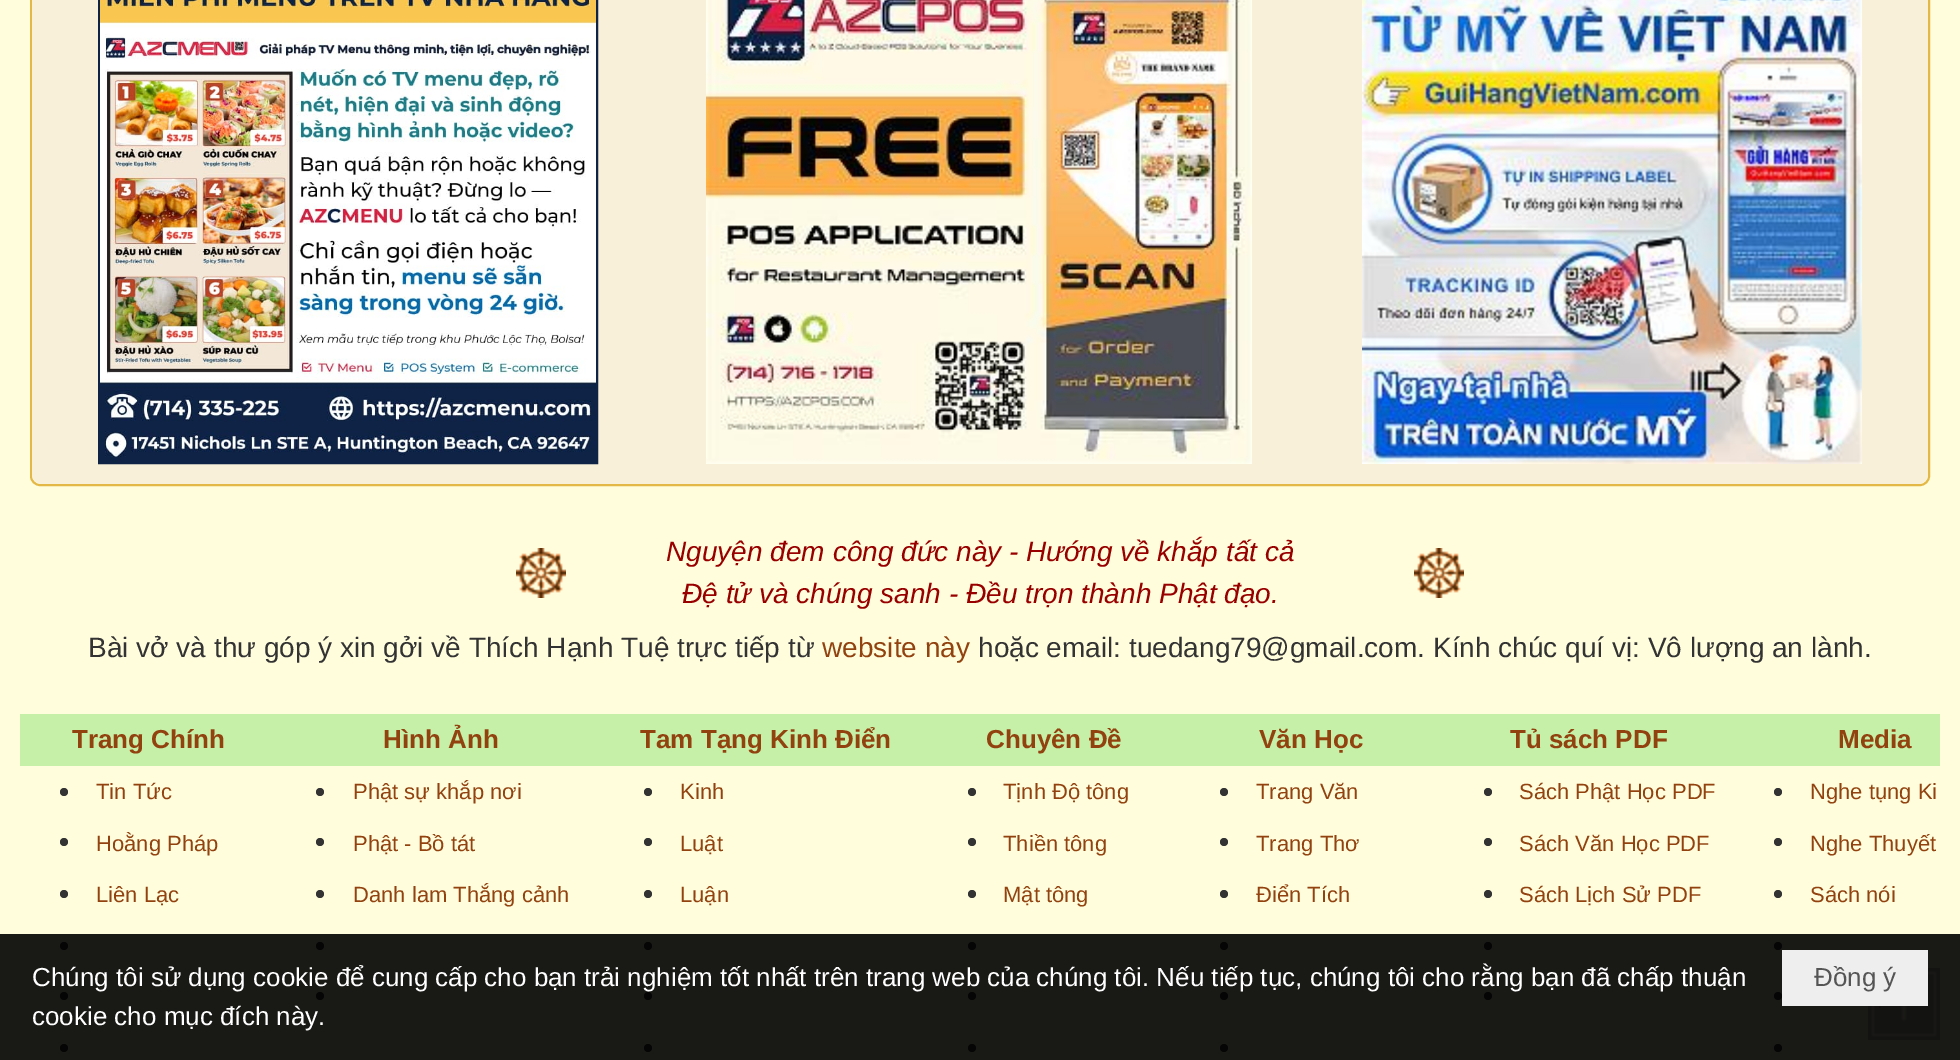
%!PS-Adobe-3.0
%%BoundingBox: 0 0 1960 1060
%%LanguageLevel: 3
%%Pages: 1
%%EndComments
%%BeginProlog
/m { moveto } bind def
/l { lineto } bind def
/c { curveto } bind def
/h { closepath } bind def
/f { fill } bind def
/S { stroke } bind def
/w { setlinewidth } bind def
/fn { [ exch dup neg 0 0 3 -1 roll 0 0 ] selectfont } def
/tx { moveto show } def
/bx { rectfill } def
/al { dup .setfillconstantalpha .setstrokeconstantalpha } def
/ci { newpath 0 360 arc closepath } def
/rr { 5 dict begin { /r /h /w /y /x } { exch def } forall
  x r add y moveto x w add y 2 copy h add r arct x w add y h add x 1 index r arct
  x y h add x y r arct x y 2 copy exch w add exch r arct closepath end } def
/im { 5 dict begin { /h /w /y /x /name } { exch def } forall
  gsave x y translate w h scale
  w h 8 [w 0 0 h 0 0] name (r) file false 3 colorimage grestore end } def
%%EndProlog
%%BeginSetup
<< /PageSize [1960 1060] /PageUsesTransparency true >> setpagedevice
%%EndSetup
%%Page: 1 1
0 .pushpdf14devicefilter
0 1060 translate 1 -1 scale
4 setmiterlimit
1 0.992 0.863 setrgbcolor
0 0 1960 1060 bx
0.89 0.722 0.278 setrgbcolor
2 w
31 -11 1898 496 9 rr S
0.976 0.941 0.851 setrgbcolor
32 -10 m 1928 -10 l 1928 474 l 1928 479.5 1923.5 484 1918 484 c 42 484 l 36.5 484 32 479.5 32 474 c h f
0.055 0.137 0.275 setrgbcolor
99 -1 498 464 rectstroke
(image0.raw) 100 0 496 462 im
(image1.raw) 706 0 546 464 im
(image2.raw) 1362 0 500 464 im
(image3.raw) 516 548 50 50 im
/LiberationSans-Italic 28 fn
0.596 0 0 setrgbcolor
(Nguyện đem công đức này - Hướng về khắp tất cả) 666 561 tx
(Đệ tử và chúng sanh - Đều trọn thành Phật đạo.) 682 603 tx
(image3.raw) 1414 548 50 50 im
/LiberationSans-Regular 28 fn
0.2 setgray
(Bài vở và thư góp ý xin gởi về Thích Hạnh Tuệ trực tiếp từ) 88 657 tx
0.573 0.259 0.059 setrgbcolor
(website này) 822 657 tx
0.2 setgray
(hoặc email: tuedang79@gmail.com. Kính chúc quí vị: Vô lượng an lành.) 978 657 tx
0.776 0.941 0.655 setrgbcolor
20 714 1920 52 bx
/LiberationSans-Bold 26 fn
0.573 0.259 0.059 setrgbcolor
(Trang Chính) 72 748 tx
(Hình Ảnh) 383 748 tx
(Tam Tạng Kinh Điển) 640 748 tx
(Chuyên Đề) 986 748 tx
(Văn Học) 1259 748 tx
(Tủ sách PDF) 1510 748 tx
(Media) 1838 748 tx
0.2 setgray
64 792 4 ci f
/LiberationSans-Regular 22 fn
0.573 0.259 0.059 setrgbcolor
(Tin Tức) 96 799 tx
0.2 setgray
320 792 4 ci f
0.573 0.259 0.059 setrgbcolor
(Phật sự khắp nơi) 353 799 tx
0.2 setgray
648 792 4 ci f
0.573 0.259 0.059 setrgbcolor
(Kinh) 680 799 tx
0.2 setgray
972 792 4 ci f
0.573 0.259 0.059 setrgbcolor
(Tịnh Độ tông) 1003 799 tx
0.2 setgray
1224 792 4 ci f
0.573 0.259 0.059 setrgbcolor
(Trang Văn) 1256 799 tx
0.2 setgray
1488 792 4 ci f
0.573 0.259 0.059 setrgbcolor
(Sách Phật Học PDF) 1519 799 tx
0.2 setgray
1778 792 4 ci f
0.573 0.259 0.059 setrgbcolor
(Nghe tụng Ki) 1810 799 tx
0.2 setgray
64 842 4 ci f
0.573 0.259 0.059 setrgbcolor
(Hoằng Pháp) 96 851 tx
0.2 setgray
320 842 4 ci f
0.573 0.259 0.059 setrgbcolor
(Phật - Bồ tát) 353 851 tx
0.2 setgray
648 842 4 ci f
0.573 0.259 0.059 setrgbcolor
(Luật) 680 851 tx
0.2 setgray
972 842 4 ci f
0.573 0.259 0.059 setrgbcolor
(Thiền tông) 1003 851 tx
0.2 setgray
1224 842 4 ci f
0.573 0.259 0.059 setrgbcolor
(Trang Thơ) 1256 851 tx
0.2 setgray
1488 842 4 ci f
0.573 0.259 0.059 setrgbcolor
(Sách Văn Học PDF) 1519 851 tx
0.2 setgray
1778 842 4 ci f
0.573 0.259 0.059 setrgbcolor
(Nghe Thuyết) 1810 851 tx
0.2 setgray
64 894 4 ci f
0.573 0.259 0.059 setrgbcolor
(Liên Lạc) 96 902 tx
0.2 setgray
320 894 4 ci f
0.573 0.259 0.059 setrgbcolor
(Danh lam Thắng cảnh) 353 902 tx
0.2 setgray
648 894 4 ci f
0.573 0.259 0.059 setrgbcolor
(Luận) 680 902 tx
0.2 setgray
972 894 4 ci f
0.573 0.259 0.059 setrgbcolor
(Mật tông) 1003 902 tx
0.2 setgray
1224 894 4 ci f
0.573 0.259 0.059 setrgbcolor
(Điển Tích) 1256 902 tx
0.2 setgray
1488 894 4 ci f
0.573 0.259 0.059 setrgbcolor
(Sách Lịch Sử PDF) 1519 902 tx
0.2 setgray
1778 894 4 ci f
0.573 0.259 0.059 setrgbcolor
(Sách nói) 1810 902 tx
0.2 setgray
64 946 4 ci f
320 946 4 ci f
648 946 4 ci f
972 946 4 ci f
1224 946 4 ci f
1488 946 4 ci f
1778 946 4 ci f
64 996 4 ci f
320 996 4 ci f
648 996 4 ci f
972 996 4 ci f
1224 996 4 ci f
1488 996 4 ci f
1778 996 4 ci f
64 1048 4 ci f
648 1048 4 ci f
972 1048 4 ci f
1224 1048 4 ci f
1778 1048 4 ci f
(image4.raw) 1868 968 72 72 im
0.9 al
0 setgray
0 934 1960 126 bx
/LiberationSans-Regular 26 fn
1 al
1 setgray
(Chúng tôi sử dụng cookie để cung cấp cho bạn trải nghiệm tốt nhất trên trang web của chúng tôi. Nếu tiếp tục, chúng tôi cho rằng bạn đã chấp thuận) 32 986 tx
(cookie cho mục đích này.) 32 1025 tx
0.933 setgray
1782 950 146 56 bx
0.333 setgray
(Đồng ý) 1814 986 tx
.poppdf14devicefilter showpage
%%EOF
